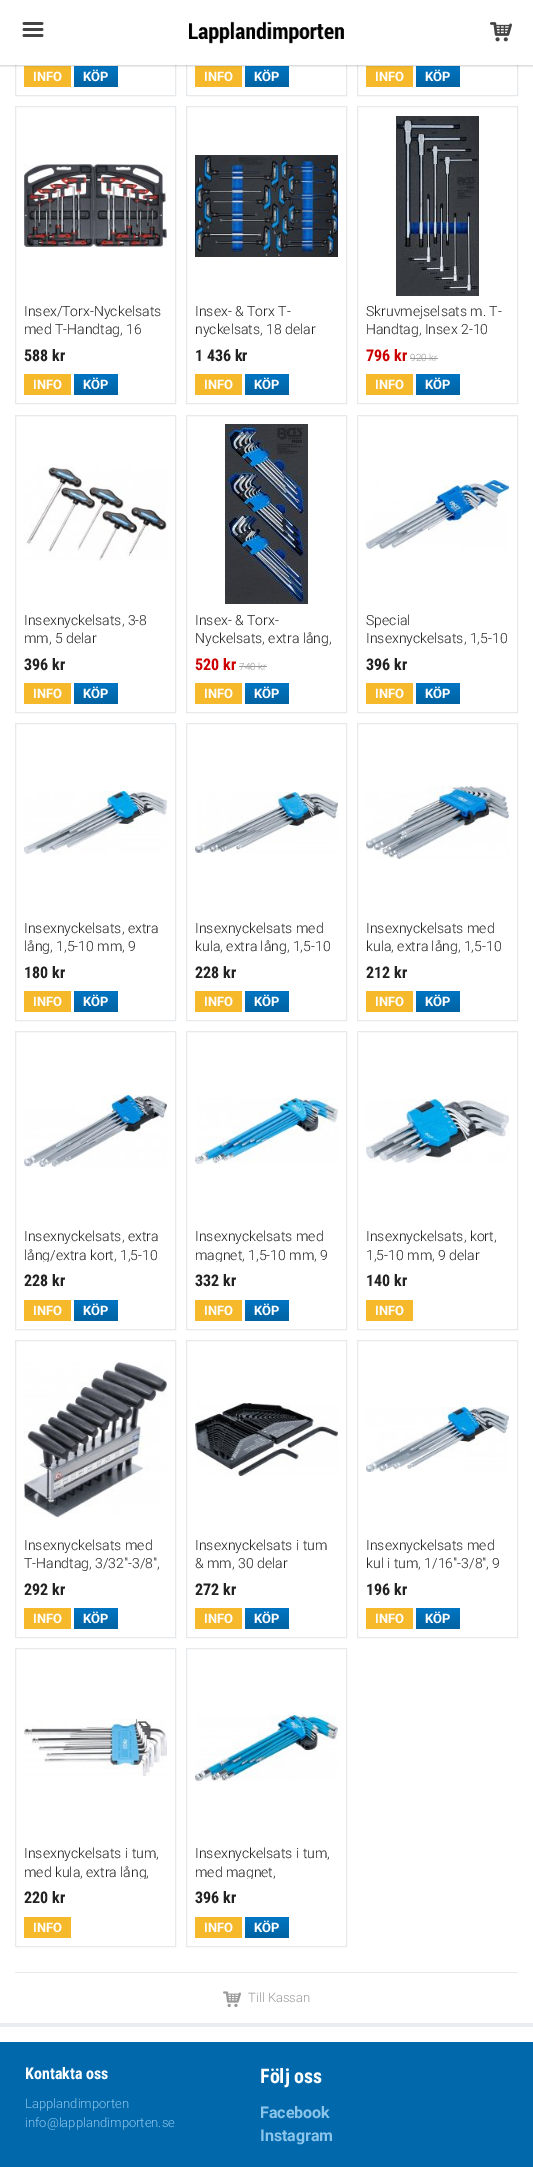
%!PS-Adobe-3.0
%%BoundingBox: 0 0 533 2167
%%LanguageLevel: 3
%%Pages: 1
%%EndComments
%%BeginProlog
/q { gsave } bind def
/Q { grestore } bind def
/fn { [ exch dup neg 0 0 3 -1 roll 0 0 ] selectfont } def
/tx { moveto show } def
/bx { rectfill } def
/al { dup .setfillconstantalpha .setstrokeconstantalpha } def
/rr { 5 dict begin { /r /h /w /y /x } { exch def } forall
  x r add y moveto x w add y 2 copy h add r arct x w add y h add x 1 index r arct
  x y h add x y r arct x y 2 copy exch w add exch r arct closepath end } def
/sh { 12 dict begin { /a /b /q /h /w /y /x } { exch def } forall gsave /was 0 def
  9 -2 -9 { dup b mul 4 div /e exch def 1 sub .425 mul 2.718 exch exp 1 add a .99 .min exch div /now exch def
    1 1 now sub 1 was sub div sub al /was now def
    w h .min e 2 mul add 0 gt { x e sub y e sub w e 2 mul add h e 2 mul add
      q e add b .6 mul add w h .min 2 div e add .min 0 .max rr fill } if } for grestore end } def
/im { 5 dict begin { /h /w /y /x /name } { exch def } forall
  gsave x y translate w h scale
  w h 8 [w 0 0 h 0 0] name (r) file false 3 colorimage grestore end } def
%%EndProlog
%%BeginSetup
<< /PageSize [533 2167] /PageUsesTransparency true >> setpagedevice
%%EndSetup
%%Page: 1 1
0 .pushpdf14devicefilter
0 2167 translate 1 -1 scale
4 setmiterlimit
1 setgray
0 0 533 2167 bx
0.906 0.918 0.929 setrgbcolor
15.5 -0.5 160 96 rectstroke
0.961 0.725 0.169 setrgbcolor
24 66 47 21 bx
0 0.455 0.753 setrgbcolor
74 66 44 4 bx
0.906 0.918 0.929 setrgbcolor
186.5 -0.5 160 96 rectstroke
0.961 0.725 0.169 setrgbcolor
195 66 47 21 bx
0 0.455 0.753 setrgbcolor
245 66 44 4 bx
0.906 0.918 0.929 setrgbcolor
357.5 -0.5 160 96 rectstroke
0.961 0.725 0.169 setrgbcolor
366 66 47 21 bx
0 0.455 0.753 setrgbcolor
416 66 44 4 bx
0 setgray
0 1 533 65 0 1 0.2 sh
1 setgray
0 0 533 65 bx
(image0.raw) 22 22 22 15 im
(image1.raw) 189 21 155 23 im
(image2.raw) 490 22 22 20 im
/Roboto-Bold 13 fn
(INFO) 33 81 tx
(image3.raw) 74 70 44 17 im
(KÖP) 83 81 tx
(INFO) 204 81 tx
(image3.raw) 245 70 44 17 im
(KÖP) 254 81 tx
(INFO) 375 81 tx
(image3.raw) 416 70 44 17 im
(KÖP) 425 81 tx
0.906 0.918 0.929 setrgbcolor
15.5 106.5 160 297 rectstroke
(image4.raw) 24 164 143 83 im
/Roboto-Light 14 fn
0.133 setgray
(Insex/Torx-Nyckelsats) 24 316 tx
(med T-Handtag, 16) 24 334 tx
/RobotoCondensed-Bold 16 fn
(588 kr) 24 361 tx
0.961 0.725 0.169 setrgbcolor
24 374 47 21 bx
/Roboto-Bold 13 fn
1 setgray
(INFO) 33 389 tx
0 0.455 0.753 setrgbcolor
74 374 44 4 bx
(image3.raw) 74 378 44 17 im
1 setgray
(KÖP) 83 389 tx
0.906 0.918 0.929 setrgbcolor
186.5 106.5 160 297 rectstroke
(image5.raw) 195 155 143 102 im
/Roboto-Light 14 fn
0.133 setgray
(Insex- & Torx T-) 195 316 tx
(nyckelsats, 18 delar) 195 334 tx
/RobotoCondensed-Bold 16 fn
(1 436 kr) 195 361 tx
0.961 0.725 0.169 setrgbcolor
195 374 47 21 bx
/Roboto-Bold 13 fn
1 setgray
(INFO) 204 389 tx
0 0.455 0.753 setrgbcolor
245 374 44 4 bx
(image3.raw) 245 378 44 17 im
1 setgray
(KÖP) 254 389 tx
0.906 0.918 0.929 setrgbcolor
357.5 106.5 160 297 rectstroke
(image6.raw) 396 116 83 180 im
/Roboto-Light 14 fn
0.133 setgray
(Skruvmejselsats m. T-) 366 316 tx
(Handtag, Insex 2-10) 366 334 tx
/RobotoCondensed-Bold 16 fn
0.8 0 0 setrgbcolor
(796 kr) 366 361 tx
/Roboto-Light 10 fn
0.6 setgray
(920 kr) 410 361 tx
410 358 28 1 bx
0.961 0.725 0.169 setrgbcolor
366 374 47 21 bx
/Roboto-Bold 13 fn
1 setgray
(INFO) 375 389 tx
0 0.455 0.753 setrgbcolor
416 374 44 4 bx
(image3.raw) 416 378 44 17 im
1 setgray
(KÖP) 425 389 tx
0.906 0.918 0.929 setrgbcolor
15.5 415.5 160 297 rectstroke
(image7.raw) 24 467 143 94 im
/Roboto-Light 14 fn
0.133 setgray
(Insexnyckelsats, 3-8) 24 625 tx
(mm, 5 delar) 24 643 tx
/RobotoCondensed-Bold 16 fn
(396 kr) 24 670 tx
0.961 0.725 0.169 setrgbcolor
24 683 47 21 bx
/Roboto-Bold 13 fn
1 setgray
(INFO) 33 698 tx
0 0.455 0.753 setrgbcolor
74 683 44 4 bx
(image3.raw) 74 687 44 17 im
1 setgray
(KÖP) 83 698 tx
0.906 0.918 0.929 setrgbcolor
186.5 415.5 160 297 rectstroke
(image8.raw) 225 424 83 180 im
/Roboto-Light 14 fn
0.133 setgray
(Insex- & Torx-) 195 625 tx
(Nyckelsats, extra lång,) 195 643 tx
/RobotoCondensed-Bold 16 fn
0.8 0 0 setrgbcolor
(520 kr) 195 670 tx
/Roboto-Light 10 fn
0.6 setgray
(740 kr) 239 670 tx
239 666 28 1 bx
0.961 0.725 0.169 setrgbcolor
195 683 47 21 bx
/Roboto-Bold 13 fn
1 setgray
(INFO) 204 698 tx
0 0.455 0.753 setrgbcolor
245 683 44 4 bx
(image3.raw) 245 687 44 17 im
1 setgray
(KÖP) 254 698 tx
0.906 0.918 0.929 setrgbcolor
357.5 415.5 160 297 rectstroke
(image9.raw) 366 480 143 69 im
/Roboto-Light 14 fn
0.133 setgray
(Special) 366 625 tx
(Insexnyckelsats, 1,5-10) 366 643 tx
/RobotoCondensed-Bold 16 fn
(396 kr) 366 670 tx
0.961 0.725 0.169 setrgbcolor
366 683 47 21 bx
/Roboto-Bold 13 fn
1 setgray
(INFO) 375 698 tx
0 0.455 0.753 setrgbcolor
416 683 44 4 bx
(image3.raw) 416 687 44 17 im
1 setgray
(KÖP) 425 698 tx
0.906 0.918 0.929 setrgbcolor
15.5 723.5 160 297 rectstroke
(image10.raw) 24 791 143 63 im
/Roboto-Light 14 fn
0.133 setgray
(Insexnyckelsats, extra) 24 933 tx
(lång, 1,5-10 mm, 9) 24 951 tx
/RobotoCondensed-Bold 16 fn
(180 kr) 24 978 tx
0.961 0.725 0.169 setrgbcolor
24 991 47 21 bx
/Roboto-Bold 13 fn
1 setgray
(INFO) 33 1006 tx
0 0.455 0.753 setrgbcolor
74 991 44 4 bx
(image3.raw) 74 995 44 17 im
1 setgray
(KÖP) 83 1006 tx
0.906 0.918 0.929 setrgbcolor
186.5 723.5 160 297 rectstroke
(image11.raw) 195 792 143 61 im
/Roboto-Light 14 fn
0.133 setgray
(Insexnyckelsats med) 195 933 tx
(kula, extra lång, 1,5-10) 195 951 tx
/RobotoCondensed-Bold 16 fn
(228 kr) 195 978 tx
0.961 0.725 0.169 setrgbcolor
195 991 47 21 bx
/Roboto-Bold 13 fn
1 setgray
(INFO) 204 1006 tx
0 0.455 0.753 setrgbcolor
245 991 44 4 bx
(image3.raw) 245 995 44 17 im
1 setgray
(KÖP) 254 1006 tx
0.906 0.918 0.929 setrgbcolor
357.5 723.5 160 297 rectstroke
(image12.raw) 366 786 143 73 im
/Roboto-Light 14 fn
0.133 setgray
(Insexnyckelsats med) 366 933 tx
(kula, extra lång, 1,5-10) 366 951 tx
/RobotoCondensed-Bold 16 fn
(212 kr) 366 978 tx
0.961 0.725 0.169 setrgbcolor
366 991 47 21 bx
/Roboto-Bold 13 fn
1 setgray
(INFO) 375 1006 tx
0 0.455 0.753 setrgbcolor
416 991 44 4 bx
(image3.raw) 416 995 44 17 im
1 setgray
(KÖP) 425 1006 tx
0.906 0.918 0.929 setrgbcolor
15.5 1031.5 160 298 rectstroke
(image13.raw) 24 1095 143 72 im
/Roboto-Light 14 fn
0.133 setgray
(Insexnyckelsats, extra) 24 1241 tx
q
24 1227 143 35 rectclip
(lång/extra kort, 1,5-10) 24 1260 tx
Q
/RobotoCondensed-Bold 16 fn
(228 kr) 24 1286 tx
0.961 0.725 0.169 setrgbcolor
24 1300 47 21 bx
/Roboto-Bold 13 fn
1 setgray
(INFO) 33 1315 tx
0 0.455 0.753 setrgbcolor
74 1300 44 4 bx
(image3.raw) 74 1304 44 17 im
1 setgray
(KÖP) 83 1315 tx
0.906 0.918 0.929 setrgbcolor
186.5 1031.5 160 298 rectstroke
(image14.raw) 195 1098 143 66 im
/Roboto-Light 14 fn
0.133 setgray
(Insexnyckelsats med) 195 1241 tx
q
195 1227 143 35 rectclip
(magnet, 1,5-10 mm, 9) 195 1260 tx
Q
/RobotoCondensed-Bold 16 fn
(332 kr) 195 1286 tx
0.961 0.725 0.169 setrgbcolor
195 1300 47 21 bx
/Roboto-Bold 13 fn
1 setgray
(INFO) 204 1315 tx
0 0.455 0.753 setrgbcolor
245 1300 44 4 bx
(image3.raw) 245 1304 44 17 im
1 setgray
(KÖP) 254 1315 tx
0.906 0.918 0.929 setrgbcolor
357.5 1031.5 160 298 rectstroke
(image15.raw) 366 1099 143 64 im
/Roboto-Light 14 fn
0.133 setgray
(Insexnyckelsats, kort,) 366 1241 tx
(1,5-10 mm, 9 delar) 366 1260 tx
/RobotoCondensed-Bold 16 fn
(140 kr) 366 1286 tx
0.961 0.725 0.169 setrgbcolor
366 1300 47 21 bx
/Roboto-Bold 13 fn
1 setgray
(INFO) 375 1315 tx
0.906 0.918 0.929 setrgbcolor
15.5 1340.5 160 297 rectstroke
(image16.raw) 24 1362 143 155 im
/Roboto-Light 14 fn
0.133 setgray
(Insexnyckelsats med) 24 1550 tx
(T-Handtag, 3/32"-3/8",) 24 1568 tx
/RobotoCondensed-Bold 16 fn
(292 kr) 24 1595 tx
0.961 0.725 0.169 setrgbcolor
24 1608 47 21 bx
/Roboto-Bold 13 fn
1 setgray
(INFO) 33 1623 tx
0 0.455 0.753 setrgbcolor
74 1608 44 4 bx
(image3.raw) 74 1612 44 17 im
1 setgray
(KÖP) 83 1623 tx
0.906 0.918 0.929 setrgbcolor
186.5 1340.5 160 297 rectstroke
(image17.raw) 195 1403 143 73 im
/Roboto-Light 14 fn
0.133 setgray
(Insexnyckelsats i tum) 195 1550 tx
(& mm, 30 delar) 195 1568 tx
/RobotoCondensed-Bold 16 fn
(272 kr) 195 1595 tx
0.961 0.725 0.169 setrgbcolor
195 1608 47 21 bx
/Roboto-Bold 13 fn
1 setgray
(INFO) 204 1623 tx
0 0.455 0.753 setrgbcolor
245 1608 44 4 bx
(image3.raw) 245 1612 44 17 im
1 setgray
(KÖP) 254 1623 tx
0.906 0.918 0.929 setrgbcolor
357.5 1340.5 160 297 rectstroke
(image18.raw) 366 1407 143 65 im
/Roboto-Light 14 fn
0.133 setgray
(Insexnyckelsats med) 366 1550 tx
(kul i tum, 1/16"-3/8", 9) 366 1568 tx
/RobotoCondensed-Bold 16 fn
(196 kr) 366 1595 tx
0.961 0.725 0.169 setrgbcolor
366 1608 47 21 bx
/Roboto-Bold 13 fn
1 setgray
(INFO) 375 1623 tx
0 0.455 0.753 setrgbcolor
416 1608 44 4 bx
(image3.raw) 416 1612 44 17 im
1 setgray
(KÖP) 425 1623 tx
0.906 0.918 0.929 setrgbcolor
15.5 1648.5 160 298 rectstroke
(image19.raw) 24 1719 143 57 im
/Roboto-Light 14 fn
0.133 setgray
(Insexnyckelsats i tum,) 24 1858 tx
q
24 1844 143 35 rectclip
(med kula, extra lång,) 24 1877 tx
Q
/RobotoCondensed-Bold 16 fn
(220 kr) 24 1903 tx
0.961 0.725 0.169 setrgbcolor
24 1917 47 21 bx
/Roboto-Bold 13 fn
1 setgray
(INFO) 33 1932 tx
0.906 0.918 0.929 setrgbcolor
186.5 1648.5 160 298 rectstroke
(image20.raw) 195 1715 143 66 im
/Roboto-Light 14 fn
0.133 setgray
(Insexnyckelsats i tum,) 195 1858 tx
q
195 1844 143 35 rectclip
(med magnet,) 195 1877 tx
Q
/RobotoCondensed-Bold 16 fn
(396 kr) 195 1903 tx
0.961 0.725 0.169 setrgbcolor
195 1917 47 21 bx
/Roboto-Bold 13 fn
1 setgray
(INFO) 204 1932 tx
0 0.455 0.753 setrgbcolor
245 1917 44 4 bx
(image3.raw) 245 1921 44 17 im
1 setgray
(KÖP) 254 1932 tx
0.906 0.918 0.929 setrgbcolor
15 1972 503 1 bx
(image21.raw) 223 1991 18 17 im
/Roboto-Light 13 fn
0.6 setgray
(Till Kassan) 248 2002 tx
0.918 0.929 0.945 setrgbcolor
0 2023 533 4 bx
0 0.408 0.671 setrgbcolor
0 2042 533 125 bx
/RobotoCondensed-Bold 16 fn
1 setgray
(Kontakta oss) 25 2079 tx
/Roboto-Light 13 fn
0.545 0.773 0.922 setrgbcolor
(Lapplandimporten) 25 2108 tx
(info@lapplandimporten.se) 25 2127 tx
/RobotoCondensed-Bold 20 fn
1 setgray
(Följ oss) 260 2083 tx
/Roboto-Bold 16 fn
0.545 0.773 0.922 setrgbcolor
(Facebook) 260 2118 tx
(Instagram) 260 2141 tx
.poppdf14devicefilter showpage
%%EOF
